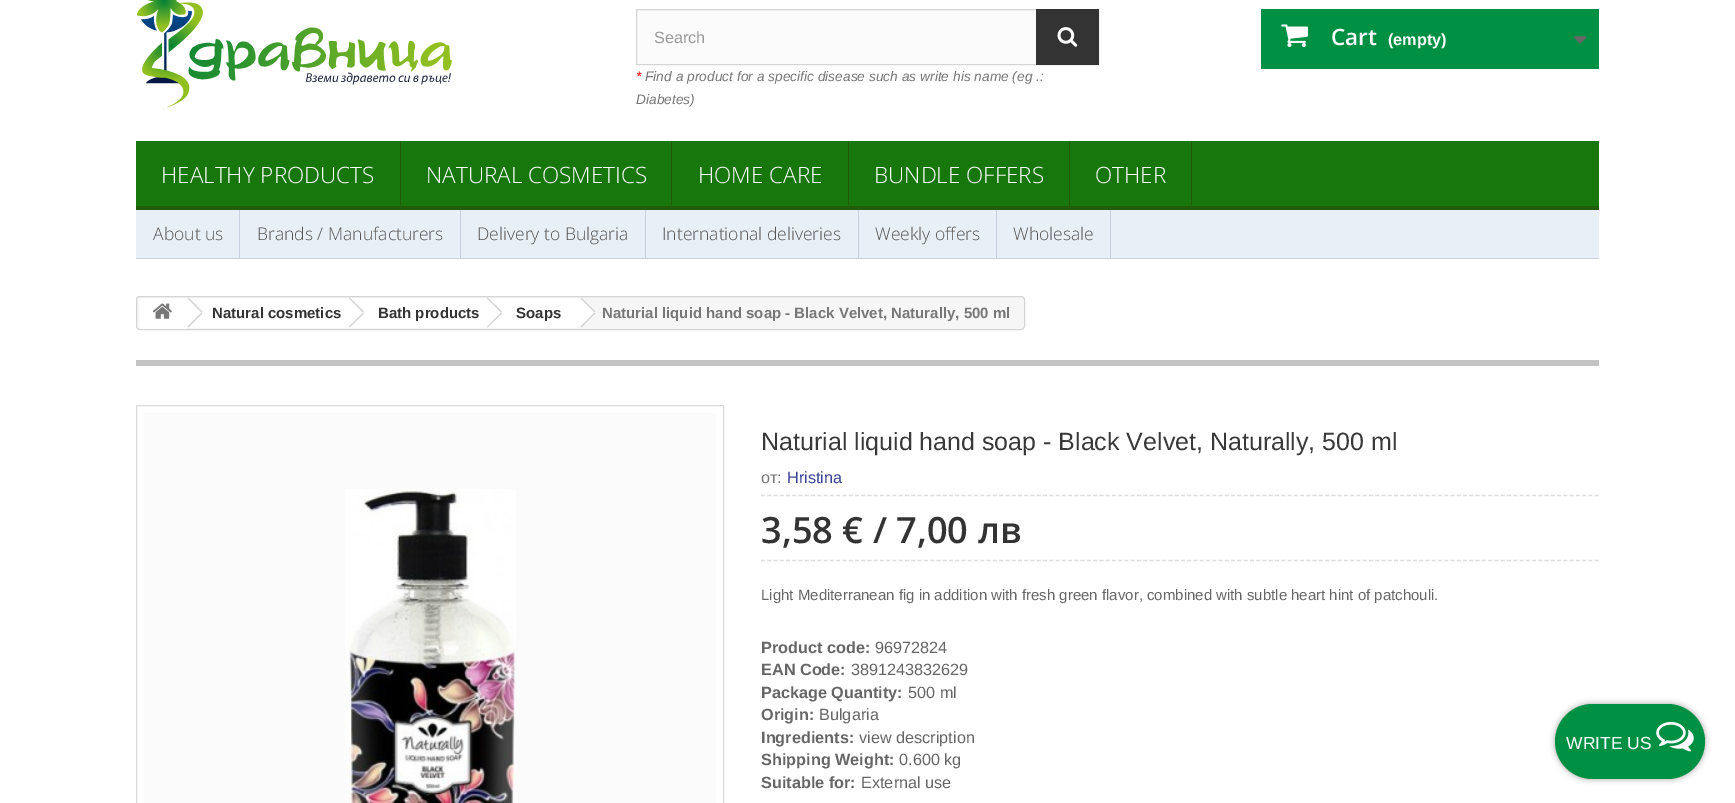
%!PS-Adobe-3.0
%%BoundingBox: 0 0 1735 803
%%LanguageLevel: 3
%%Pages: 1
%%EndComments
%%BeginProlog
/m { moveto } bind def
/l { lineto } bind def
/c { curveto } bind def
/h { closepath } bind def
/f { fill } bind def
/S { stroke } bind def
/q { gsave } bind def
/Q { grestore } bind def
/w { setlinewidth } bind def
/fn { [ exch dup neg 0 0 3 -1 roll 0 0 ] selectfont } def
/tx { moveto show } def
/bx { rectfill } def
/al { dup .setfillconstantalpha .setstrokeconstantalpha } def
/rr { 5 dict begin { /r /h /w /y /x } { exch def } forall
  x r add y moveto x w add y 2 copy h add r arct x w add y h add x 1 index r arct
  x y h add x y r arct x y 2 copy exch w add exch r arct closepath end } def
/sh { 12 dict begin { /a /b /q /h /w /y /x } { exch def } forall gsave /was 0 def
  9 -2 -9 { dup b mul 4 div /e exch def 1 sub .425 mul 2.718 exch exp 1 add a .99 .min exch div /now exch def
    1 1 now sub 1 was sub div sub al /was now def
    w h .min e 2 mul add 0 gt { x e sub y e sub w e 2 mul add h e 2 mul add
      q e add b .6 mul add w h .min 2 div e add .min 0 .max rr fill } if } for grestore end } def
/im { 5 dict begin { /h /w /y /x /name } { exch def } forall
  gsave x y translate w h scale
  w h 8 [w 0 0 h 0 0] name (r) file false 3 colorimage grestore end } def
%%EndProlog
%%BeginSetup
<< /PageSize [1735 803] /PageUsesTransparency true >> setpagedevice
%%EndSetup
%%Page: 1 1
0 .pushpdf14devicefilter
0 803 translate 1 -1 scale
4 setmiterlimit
1 setgray
0 0 1735 803 bx
(image0.raw) 137 0 315 109 im
0.984 setgray
637 10 399 54 bx
0.839 0.831 0.831 setrgbcolor
636.5 9.5 462 55 rectstroke
/LiberationSans-Regular 16.25 fn
0.6 setgray
(Search) 654 43 tx
0.2 setgray
1036 9 63 56 bx
(image1.raw) 1057 27 21 20 im
/LiberationSans-Italic 13.75 fn
1 0 0 setrgbcolor
(*) 636 81 tx
0.467 setgray
(Find a product for a specific disease such as write his name \(eg .:) 645 81 tx
(Diabetes\)) 636 104 tx
0 0.565 0.267 setrgbcolor
1261 9 338 60 bx
(image2.raw) 1281 24 27 23 im
/OpenSans-SemiBold 22.5 fn
1 setgray
(Cart) 1331 45 tx
/LiberationSans-Bold 16.25 fn
(\(empty\)) 1388 45 tx
(image3.raw) 1573 36 14 8 im
0.09 0.467 0.051 setrgbcolor
136 141 1463 65 bx
0.133 0.361 0.024 setrgbcolor
136 206 1463 4 bx
400 141 1 69 bx
/OpenSans-Light 22.5 fn
1 setgray
(HEALTHY PRODUCTS) 161 183 tx
0.133 0.361 0.024 setrgbcolor
671 141 1 69 bx
1 setgray
(NATURAL COSMETICS) 426 183 tx
0.133 0.361 0.024 setrgbcolor
848 141 1 69 bx
1 setgray
(HOME CARE) 698 183 tx
0.133 0.361 0.024 setrgbcolor
1069 141 1 69 bx
1 setgray
(BUNDLE OFFERS) 874 183 tx
0.133 0.361 0.024 setrgbcolor
1191 141 1 69 bx
1 setgray
(OTHER) 1095 183 tx
0.91 0.937 0.969 setrgbcolor
136 210 1463 48 bx
0.776 0.82 0.867 setrgbcolor
136 258 1463 1 bx
239 210 1 48 bx
/OpenSans-Light 17.5 fn
0.337 0.329 0.329 setrgbcolor
(About us) 153 240 tx
0.776 0.82 0.867 setrgbcolor
460 210 1 48 bx
0.337 0.329 0.329 setrgbcolor
(Brands / Manufacturers) 257 240 tx
0.776 0.82 0.867 setrgbcolor
645 210 1 48 bx
0.337 0.329 0.329 setrgbcolor
(Delivery to Bulgaria) 477 240 tx
0.776 0.82 0.867 setrgbcolor
858 210 1 48 bx
0.337 0.329 0.329 setrgbcolor
(International deliveries) 662 240 tx
0.776 0.82 0.867 setrgbcolor
996 210 1 48 bx
0.337 0.329 0.329 setrgbcolor
(Weekly offers) 875 240 tx
0.776 0.82 0.867 setrgbcolor
1110 210 1 48 bx
0.337 0.329 0.329 setrgbcolor
(Wholesale) 1013 240 tx
0.965 setgray
136.5 296.5 888 33 3.5 rr q f Q
0.839 0.831 0.831 setrgbcolor
S
1 setgray
143 298 m 186 298 l 186 329 l 143 329 l 141 329 139 327 139 325 c 139 302 l 139 300 141 298 143 298 c h f
(image4.raw) 152 303 20 16 im
186 298 164 30 bx
0.839 0.831 0.831 setrgbcolor
188.5 297.5 m 202.5 311.5 l 201.5 312.5 l 187.5 298.5 l h f
201.5 312.5 m 202.5 313.5 l 188.5 327.5 l 187.5 326.5 l h f
/LiberationSans-Bold 15 fn
0.2 setgray
(Natural cosmetics) 212 318 tx
1 setgray
363 298.5 m 362.5 298 362 298 361 298 c 359.5 298 359 299 357.5 300.5 c 349 308.5 l 345.5 312 345.5 313 349 316.5 c 353 320.5 l 361.5 328.5 359.5 330 367 322.5 c 371.5 318.5 l 373 317 378.5 313.5 375.5 310.5 c h f
350 298 138 30 bx
0.839 0.831 0.831 setrgbcolor
349.5 297.5 m 364 311.5 l 363 312.5 l 349 298.5 l h f
363 312.5 m 364 313.5 l 349.5 327.5 l 349 326.5 l h f
0.2 setgray
(Bath products) 378 318 tx
1 setgray
501 298.5 m 500.5 298 500 298 499 298 c 497.5 298 497 299 495.5 300.5 c 487 308.5 l 483.5 312 483.5 313 487 316.5 c 491 320.5 l 499.5 328.5 497.5 330 505 322.5 c 509.5 318.5 l 511 317 516.5 313.5 513.5 310.5 c h f
488 298 91 30 bx
0.839 0.831 0.831 setrgbcolor
487.5 297.5 m 502 311.5 l 501 312.5 l 487 298.5 l h f
501 312.5 m 502 313.5 l 487.5 327.5 l 487 326.5 l h f
0.2 setgray
(Soaps) 516 318 tx
1 setgray
582.5 298.5 m 580 296 576 301.5 575 302.5 c 570.5 306.5 l 569 308 564.5 311 566 314 c 577 324.5 l 578 325.5 580 328 582 327 c 590.5 318.5 l 592 317 597.5 313.5 594.5 310.5 c h f
0.839 0.831 0.831 setrgbcolor
581.5 297.5 m 595.5 311.5 l 594.5 312.5 l 580.5 298.5 l h f
594.5 312.5 m 595.5 313.5 l 581.5 327.5 l 580.5 326.5 l h f
0.467 setgray
(Naturial liquid hand soap - Black Velvet, Naturally, 500 ml) 602 318 tx
0.769 setgray
136 360 1463 6 bx
0.859 setgray
136.5 405.5 587 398 rectstroke
0.984 setgray
144 413 572 390 bx
(image5.raw) 345 489 171 314 im
/LiberationSans-Regular 25 fn
0.227 0.224 0.224 setrgbcolor
(Naturial liquid hand soap - Black Velvet, Naturally, 500 ml) 761 450 tx
/LiberationSans-Regular 16.25 fn
0.467 setgray
(от:) 761 483 tx
0.227 0.255 0.576 setrgbcolor
(Hristina) 787 483 tx
0.867 setgray
1.2 w
[3.75 2.52] 0 setdash
761 495.5 m 1599 495.5 l S
/OpenSans-SemiBold 36.25 fn
0.2 setgray
(3,58 € / 7,00 лв) 761 543 tx
0.867 setgray
761 560.5 m 1599 560.5 l S
/LiberationSans-Regular 15 fn
0.4 setgray
(Light Mediterranean fig in addition with fresh green flavor, combined with subtle heart hint of patchouli.) 761 600 tx
/LiberationSans-Bold 16.25 fn
(Product code:) 761 653 tx
/LiberationSans-Regular 16.25 fn
(96972824) 875 653 tx
/LiberationSans-Bold 16.25 fn
(EAN Code:) 761 675 tx
/LiberationSans-Regular 16.25 fn
(3891243832629) 851 675 tx
/LiberationSans-Bold 16.25 fn
(Package Quantity:) 761 698 tx
/LiberationSans-Regular 16.25 fn
(500 ml) 908 698 tx
/LiberationSans-Bold 16.25 fn
(Origin:) 761 720 tx
/LiberationSans-Regular 16.25 fn
(Bulgaria) 819 720 tx
/LiberationSans-Bold 16.25 fn
(Ingredients:) 761 743 tx
/LiberationSans-Regular 16.25 fn
(view description) 859 743 tx
/LiberationSans-Bold 16.25 fn
(Shipping Weight:) 761 765 tx
/LiberationSans-Regular 16.25 fn
(0.600 kg) 899 765 tx
/LiberationSans-Bold 16.25 fn
(Suitable for:) 761 788 tx
/LiberationSans-Regular 16.25 fn
(External use) 861 788 tx
0 setgray
1555 704 150 75 37.5 3 0.35 sh
0 0.565 0.267 setrgbcolor
1555 704 150 75 37.5 rr f
/LiberationSans-Regular 17.5 fn
1 setgray
(WRITE US) 1566 749 tx
(image6.raw) 1656 722 38 30 im
.poppdf14devicefilter showpage
%%EOF
